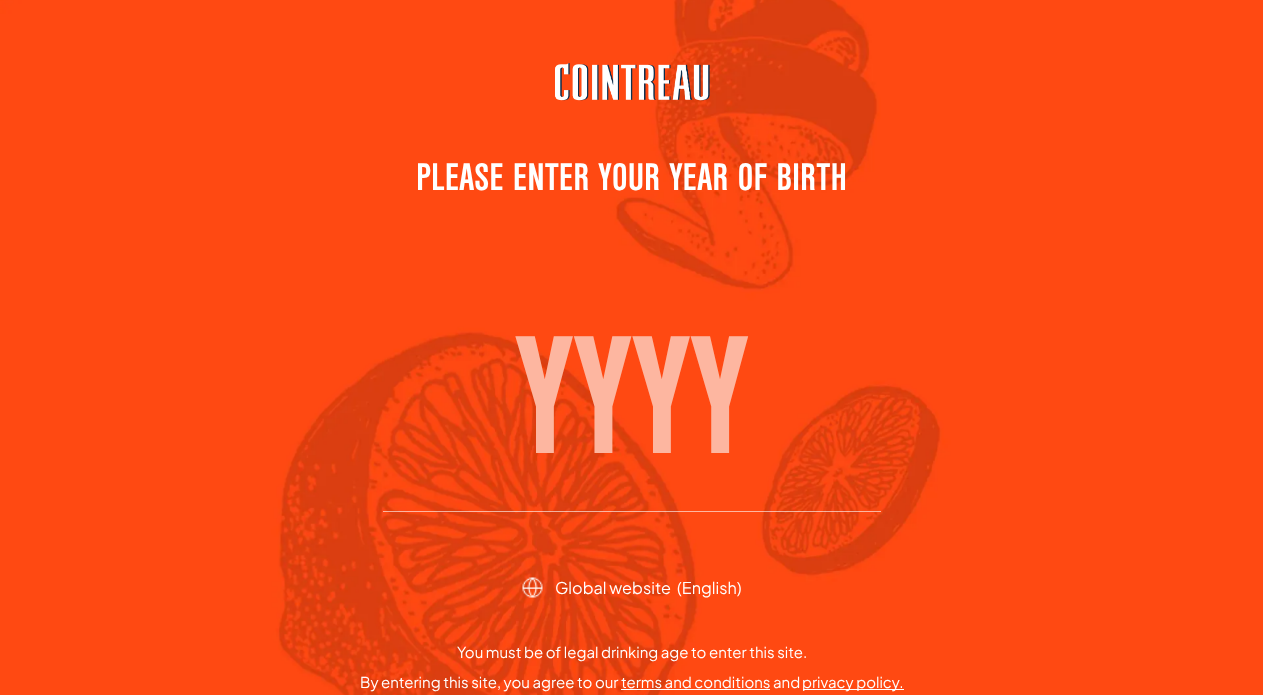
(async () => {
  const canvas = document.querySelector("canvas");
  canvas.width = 1263;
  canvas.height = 695;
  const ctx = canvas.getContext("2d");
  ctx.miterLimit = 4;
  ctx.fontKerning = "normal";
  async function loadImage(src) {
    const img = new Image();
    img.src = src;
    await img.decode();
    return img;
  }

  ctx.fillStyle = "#ffffff";
  ctx.fillRect(0, 0, 1263, 695);
  ctx.drawImage(await loadImage("img/1.png"), 0, 0, 1263, 695);
  ctx.drawImage(await loadImage("img/2.png"), 555, 63, 155, 38);
  ctx.fillStyle = "rgba(255, 255, 255, 0.6)";
  ctx.fillRect(383, 511, 498, 1);
  ctx.drawImage(await loadImage("img/3.png"), 522, 577, 21, 21);
  ctx.fillStyle = "#ffffff";
  ctx.fillRect(803, 689, 101, 1);
  ctx.fillRect(621, 689, 149, 1);
  ctx.font = "bold 40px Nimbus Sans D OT";
  ctx.fillText("PLEASE ENTER YOUR YEAR OF BIRTH", 416, 190);
  ctx.font = "bold 175px Nimbus Sans D OT";
  ctx.fillStyle = "#fdb6a0";
  ctx.fillText("YYYY", 515, 453);
  ctx.font = "16.25px Plus Jakarta Sans";
  ctx.fillStyle = "#ffffff";
  ctx.fillText("Global website", 555, 594);
  ctx.fillText("(English)", 677, 594);
  ctx.font = "15px Plus Jakarta Sans";
  for (const [text, x, y] of [
    ["You must be of legal drinking age to enter this site.", 457, 658],
    ["By entering this site, you agree to our terms and conditions and", 360, 688],
    ["privacy policy.", 802, 688],
  ]) {
    ctx.fillText(text, x, y);
  }
})();
